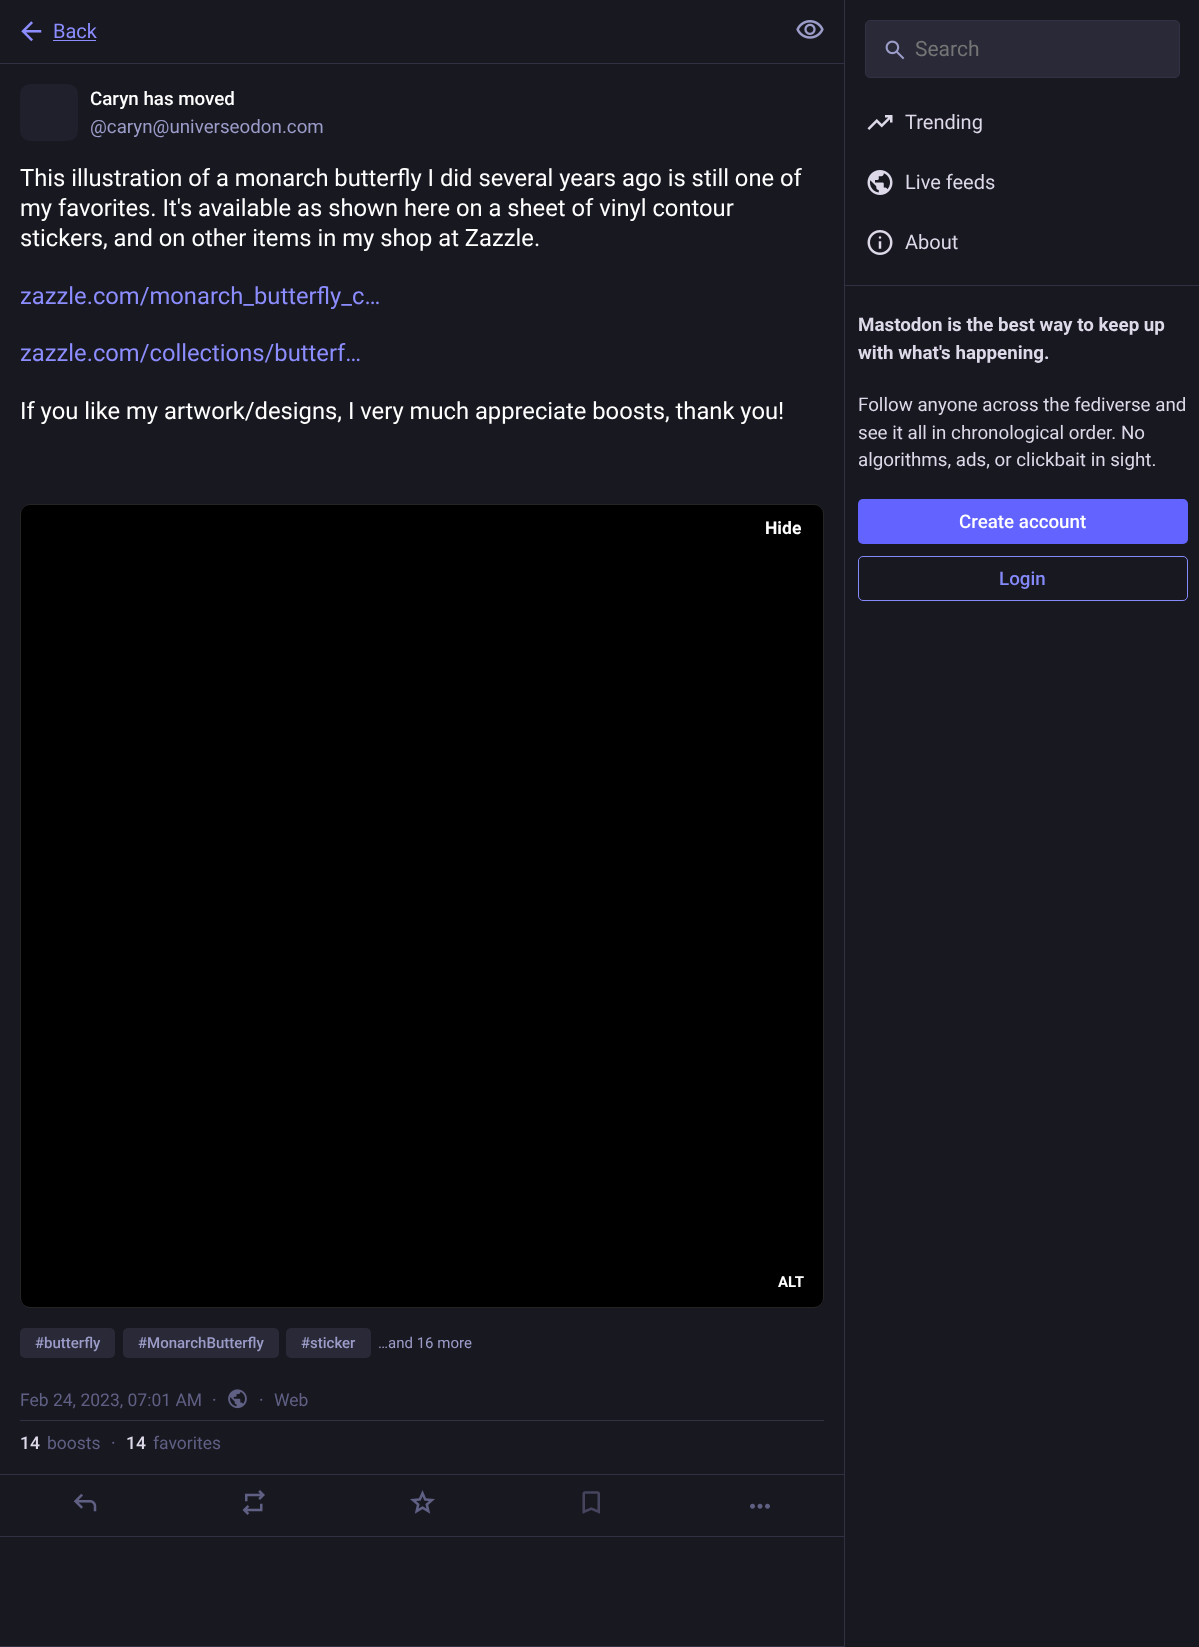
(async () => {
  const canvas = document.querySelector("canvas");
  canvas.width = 1199;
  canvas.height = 1647;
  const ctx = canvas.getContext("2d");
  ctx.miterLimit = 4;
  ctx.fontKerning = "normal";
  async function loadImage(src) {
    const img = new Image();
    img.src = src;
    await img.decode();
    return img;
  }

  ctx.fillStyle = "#181821";
  ctx.fillRect(0, 0, 1199, 1647);
  ctx.fillStyle = "#313144";
  ctx.fillRect(0, 63, 844, 1);
  ctx.drawImage(await loadImage("img/1.png"), 21, 21, 21, 21);
  ctx.fillStyle = "#8c8dff";
  ctx.fillRect(53, 40, 43, 1);
  ctx.drawImage(await loadImage("img/2.png"), 796, 20, 28, 19);
  ctx.fillStyle = "#313144";
  ctx.fillRect(0, 1646, 844, 1);
  ctx.fillStyle = "#20202c";
  ctx.beginPath();
  ctx.roundRect(20, 84, 58, 57, 10);
  ctx.fill();
  ctx.fillStyle = "#000000";
  ctx.beginPath();
  ctx.roundRect(20, 504, 804, 804, 10);
  ctx.fill();
  ctx.beginPath();
  ctx.roundRect(20.5, 504.5, 803, 803, 9.5);
  ctx.strokeStyle = "rgba(252, 248, 255, 0.15)";
  ctx.stroke();
  ctx.fillStyle = "#292938";
  ctx.beginPath();
  ctx.roundRect(20, 1328, 95, 30, 5);
  ctx.fill();
  ctx.beginPath();
  ctx.roundRect(123, 1328, 156, 30, 5);
  ctx.fill();
  ctx.beginPath();
  ctx.roundRect(286, 1328, 85, 30, 5);
  ctx.fill();
  ctx.fillStyle = "#313144";
  ctx.fillRect(20, 1420, 804, 1);
  ctx.drawImage(await loadImage("img/3.png"), 228, 1389, 19, 20);
  ctx.fillRect(0, 1474, 844, 1);
  ctx.fillRect(0, 1536, 844, 1);
  ctx.drawImage(await loadImage("img/4.png"), 73, 1493, 24, 19);
  ctx.drawImage(await loadImage("img/5.png"), 242, 1490, 23, 25);
  ctx.drawImage(await loadImage("img/6.png"), 410, 1490, 25, 24);
  ctx.drawImage(await loadImage("img/7.png"), 582, 1491, 18, 23);
  ctx.drawImage(await loadImage("img/8.png"), 750, 1503, 20, 6);
  ctx.fillRect(844, 0, 1, 1647);
  ctx.fillStyle = "#292938";
  ctx.beginPath();
  ctx.roundRect(865.5, 20.5, 314, 57, 4.5);
  ctx.fill();
  ctx.strokeStyle = "#313144";
  ctx.stroke();
  ctx.drawImage(await loadImage("img/9.png"), 885, 40, 20, 20);
  ctx.drawImage(await loadImage("img/10.png"), 867, 115, 26, 15);
  ctx.drawImage(await loadImage("img/11.png"), 867, 170, 26, 25);
  ctx.drawImage(await loadImage("img/12.png"), 867, 230, 26, 25);
  ctx.fillStyle = "#313144";
  ctx.fillRect(845, 285, 354, 1);
  ctx.fillStyle = "#6364ff";
  ctx.beginPath();
  ctx.roundRect(858, 499, 330, 45, 5);
  ctx.fill();
  ctx.beginPath();
  ctx.roundRect(858.5, 556.5, 329, 44, 4.5);
  ctx.strokeStyle = "#858afa";
  ctx.stroke();
  ctx.font = "20px Roboto";
  ctx.fillStyle = "#8c8dff";
  ctx.fillText("Back", 53, 38);
  ctx.font = "500 18.75px Roboto";
  ctx.fillStyle = "#ffffff";
  ctx.fillText("Caryn has moved", 90, 105);
  ctx.font = "18.75px Roboto";
  ctx.fillStyle = "#9c9cc9";
  ctx.fillText("@caryn@universeodon.com", 90, 133);
  ctx.font = "23.75px Roboto";
  ctx.fillStyle = "#ffffff";
  for (const [text, x, y] of [
    ["This illustration of a monarch butterfly I did several years ago is still one of", 20, 186],
    ["my favorites. It's available as shown here on a sheet of vinyl contour", 20, 216],
    ["stickers, and on other items in my shop at Zazzle.", 20, 246],
  ]) {
    ctx.fillText(text, x, y);
  }
  ctx.fillStyle = "#8c8dff";
  ctx.fillText("zazzle.com/monarch_butterfly_c…", 20, 304);
  ctx.fillText("zazzle.com/collections/butterf…", 20, 361);
  ctx.fillStyle = "#ffffff";
  ctx.fillText("If you like my artwork/designs, I very much appreciate boosts, thank you!", 20, 419);
  ctx.font = "bold 17.5px Roboto";
  ctx.fillText("Hide", 765, 534);
  ctx.font = "bold 15px Roboto";
  ctx.fillText("ALT", 778, 1287);
  ctx.font = "500 15px Roboto";
  ctx.fillStyle = "#9c9cc9";
  for (const [text, x, y] of [
    ["#butterfly", 35, 1348],
    ["#MonarchButterfly", 138, 1348],
    ["#sticker", 301, 1348],
  ]) {
    ctx.fillText(text, x, y);
  }
  ctx.font = "15px Roboto";
  ctx.fillText("…and 16 more", 378, 1348);
  ctx.font = "17.5px Roboto";
  ctx.fillStyle = "#606085";
  for (const [text, x, y] of [
    ["Feb 24, 2023, 07:01 AM", 20, 1406],
    ["·", 212, 1406],
    ["·", 259, 1406],
    ["Web", 274, 1406],
  ]) {
    ctx.fillText(text, x, y);
  }
  ctx.font = "500 17.5px Roboto";
  ctx.fillStyle = "#ddd9e8";
  ctx.fillText("14", 20, 1449);
  ctx.font = "17.5px Roboto";
  ctx.fillStyle = "#606085";
  ctx.fillText("boosts", 47, 1449);
  ctx.fillText("·", 111, 1449);
  ctx.font = "500 17.5px Roboto";
  ctx.fillStyle = "#ddd9e8";
  ctx.fillText("14", 126, 1449);
  ctx.font = "17.5px Roboto";
  ctx.fillStyle = "#606085";
  ctx.fillText("favorites", 153, 1449);
  ctx.font = "21px Roboto";
  ctx.fillStyle = "#757575";
  ctx.fillText("Search", 915, 56);
  ctx.font = "20px Roboto";
  ctx.fillStyle = "#ddd9e8";
  for (const [text, x, y] of [
    ["Trending", 905, 129],
    ["Live feeds", 905, 189],
    ["About", 905, 249],
  ]) {
    ctx.fillText(text, x, y);
  }
  ctx.font = "bold 18.75px Roboto";
  ctx.fillText("Mastodon is the best way to keep up", 858, 331);
  ctx.fillText("with what's happening.", 858, 359);
  ctx.font = "18.75px Roboto";
  for (const [text, x, y] of [
    ["Follow anyone across the fediverse and", 858, 411],
    ["see it all in chronological order. No", 858, 439],
    ["algorithms, ads, or clickbait in sight.", 858, 466],
  ]) {
    ctx.fillText(text, x, y);
  }
  ctx.font = "500 18.75px Roboto";
  ctx.fillStyle = "#ffffff";
  ctx.fillText("Create account", 959, 528);
  ctx.fillStyle = "#858afa";
  ctx.fillText("Login", 999, 585);
})();
